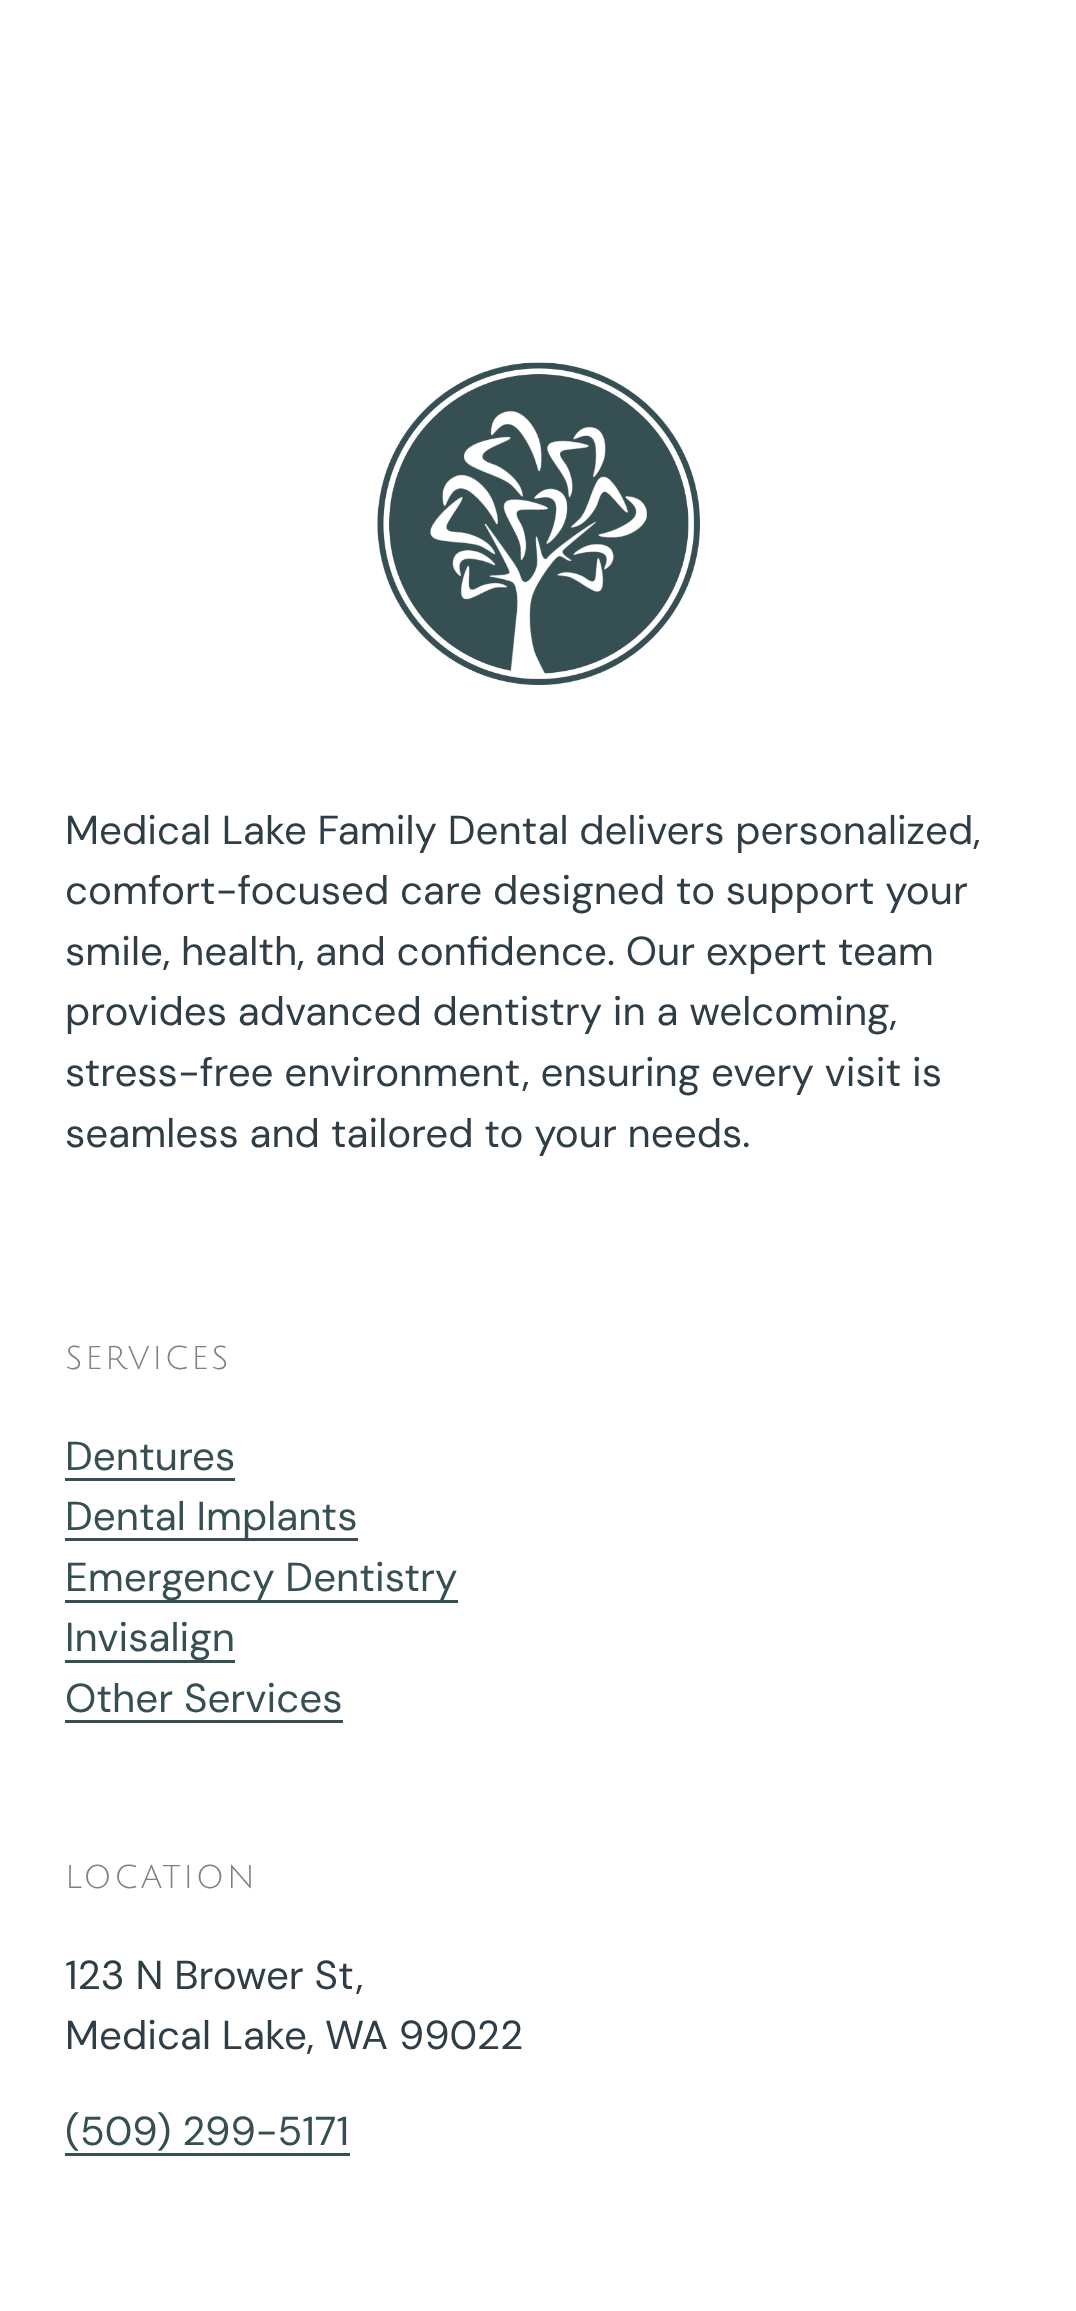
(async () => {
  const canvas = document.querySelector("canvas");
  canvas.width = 1076;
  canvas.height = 2311;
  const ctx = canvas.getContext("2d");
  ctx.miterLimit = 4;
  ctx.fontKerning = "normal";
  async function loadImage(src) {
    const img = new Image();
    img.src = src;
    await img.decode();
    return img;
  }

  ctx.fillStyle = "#ffffff";
  ctx.fillRect(0, 0, 1076, 2311);
  ctx.drawImage(await loadImage("img/1.png"), 377, 362, 323, 323);
  for (const [x, y, w, h, color] of [
    [65, 1478, 170, 3, "#364f52"],
    [65, 1538, 293, 3, "#364f52"],
    [65, 1600, 393, 3, "#364f52"],
    [65, 1660, 170, 3, "#364f52"],
    [65, 1720, 278, 3, "#364f52"],
    [65, 2153, 285, 3, "#364f52"],
  ]) {
    ctx.fillStyle = color;
    ctx.fillRect(x, y, w, h);
  }
  ctx.font = "40.4px DM Sans";
  ctx.fillStyle = "#2f3e46";
  for (const [text, x, y] of [
    ["Medical Lake Family Dental delivers personalized,", 65, 844],
    ["comfort-focused care designed to support your", 65, 904],
    ["smile, health, and confidence. Our expert team", 65, 965],
    ["provides advanced dentistry in a welcoming,", 65, 1025],
    ["stress-free environment, ensuring every visit is", 65, 1086],
    ["seamless and tailored to your needs.", 65, 1147],
  ]) {
    ctx.fillText(text, x, y);
  }
  ctx.letterSpacing = "2.5px";
  ctx.font = "32.25px Julius Sans One";
  ctx.fillStyle = "#808080";
  ctx.fillText("SERVICES", 65, 1369);
  ctx.letterSpacing = "0px";
  ctx.font = "40.4px DM Sans";
  ctx.fillStyle = "#364f52";
  for (const [text, x, y] of [
    ["Dentures", 65, 1470],
    ["Dental Implants", 65, 1530],
    ["Emergency Dentistry", 65, 1591],
    ["Invisalign", 65, 1651],
    ["Other Services", 65, 1712],
  ]) {
    ctx.fillText(text, x, y);
  }
  ctx.letterSpacing = "2.5px";
  ctx.font = "32.25px Julius Sans One";
  ctx.fillStyle = "#808080";
  ctx.fillText("LOCATION", 65, 1888);
  ctx.letterSpacing = "0px";
  ctx.font = "40.4px DM Sans";
  ctx.fillStyle = "#2f3e46";
  ctx.fillText("123 N Brower St,", 65, 1989);
  ctx.fillText("Medical Lake, WA 99022", 65, 2049);
  ctx.fillStyle = "#364f52";
  ctx.fillText("(509) 299-5171", 65, 2145);
})();
